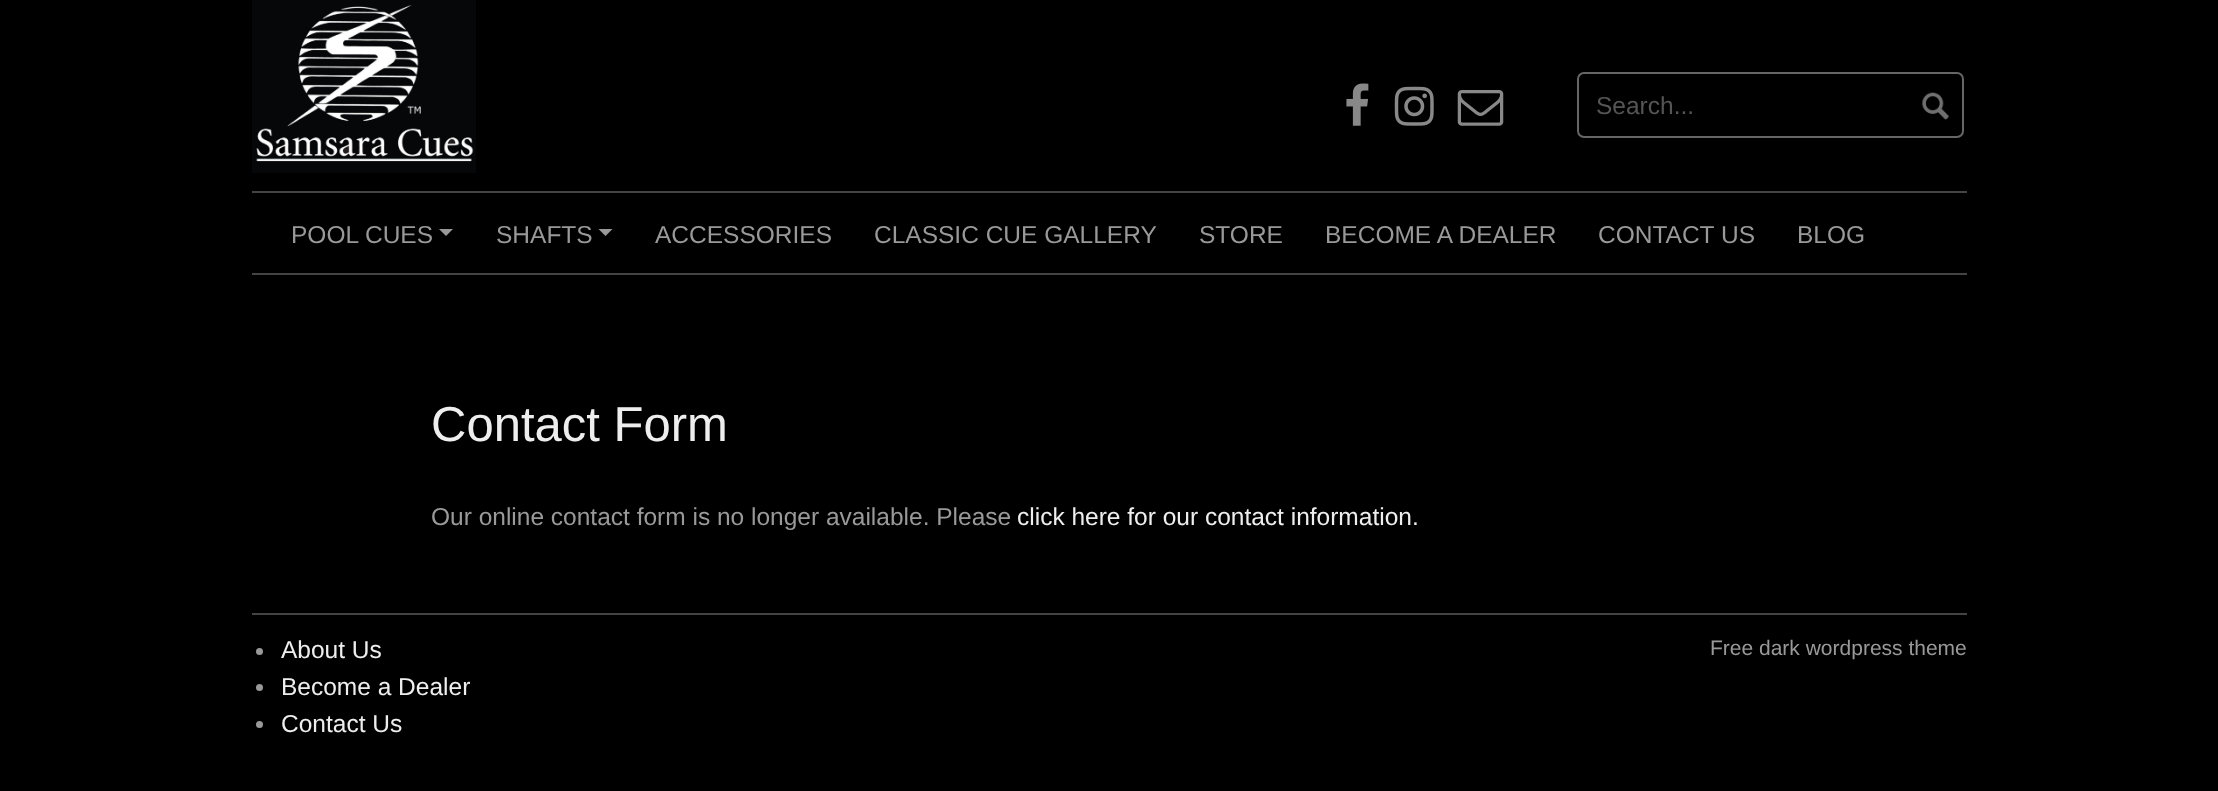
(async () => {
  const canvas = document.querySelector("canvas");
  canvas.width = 2218;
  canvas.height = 791;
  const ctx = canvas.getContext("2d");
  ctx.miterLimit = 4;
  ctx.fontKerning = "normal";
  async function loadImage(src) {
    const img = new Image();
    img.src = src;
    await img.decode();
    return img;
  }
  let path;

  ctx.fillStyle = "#000000";
  ctx.fillRect(0, 0, 2218, 791);
  ctx.drawImage(await loadImage("img/1.png"), 252, 0, 224, 173);
  ctx.drawImage(await loadImage("img/2.png"), 1346, 83, 23, 43);
  ctx.drawImage(await loadImage("img/3.png"), 1394, 86, 40, 40);
  ctx.drawImage(await loadImage("img/4.png"), 1457, 90, 47, 36);
  ctx.beginPath();
  ctx.roundRect(1578, 73, 385, 64, 6);
  ctx.strokeStyle = "#666666";
  ctx.lineWidth = 2;
  ctx.stroke();
  ctx.drawImage(await loadImage("img/5.png"), 1922, 92, 27, 28);
  ctx.fillStyle = "#444444";
  ctx.fillRect(252, 191, 1715, 2);
  ctx.fillRect(252, 273, 1715, 2);
  ctx.fillStyle = "#999999";
  path = new Path2D("M439 229H453L446 236Z");
  ctx.fill(path);
  path = new Path2D("M598.5 229H612.5L605.5 236Z");
  ctx.fill(path);
  ctx.fillStyle = "#444444";
  ctx.fillRect(252, 613, 1715, 2);
  ctx.fillStyle = "#999999";
  ctx.beginPath();
  ctx.arc(259.5, 651.5, 3.5, 0, Math.PI * 2);
  ctx.fill();
  ctx.beginPath();
  ctx.arc(259.5, 687.5, 3.5, 0, Math.PI * 2);
  ctx.fill();
  ctx.beginPath();
  ctx.arc(259.5, 724.5, 3.5, 0, Math.PI * 2);
  ctx.fill();
  ctx.font = "24.5px Liberation Sans";
  ctx.fillStyle = "#555555";
  ctx.fillText("Search...", 1596, 114);
  ctx.fillStyle = "#999999";
  for (const [text, x, y] of [
    ["POOL CUES", 291, 243],
    ["SHAFTS", 496, 243],
    ["ACCESSORIES", 655, 243],
    ["CLASSIC CUE GALLERY", 874, 243],
    ["STORE", 1199, 243],
    ["BECOME A DEALER", 1325, 243],
    ["CONTACT US", 1598, 243],
    ["BLOG", 1797, 243],
  ]) {
    ctx.fillText(text, x, y);
  }
  ctx.font = "49px Liberation Sans";
  ctx.fillStyle = "#eeeeee";
  ctx.fillText("Contact Form", 431, 441);
  ctx.font = "24.5px Liberation Sans";
  ctx.fillStyle = "#999999";
  ctx.fillText("Our online contact form is no longer available. Please", 431, 525);
  ctx.fillStyle = "#eeeeee";
  for (const [text, x, y] of [
    ["click here for our contact information.", 1017, 525],
    ["About Us", 281, 658],
    ["Become a Dealer", 281, 695],
    ["Contact Us", 281, 732],
  ]) {
    ctx.fillText(text, x, y);
  }
  ctx.font = "21px Liberation Sans";
  ctx.fillStyle = "#999999";
  ctx.fillText("Free dark wordpress theme", 1710, 655);
})();
